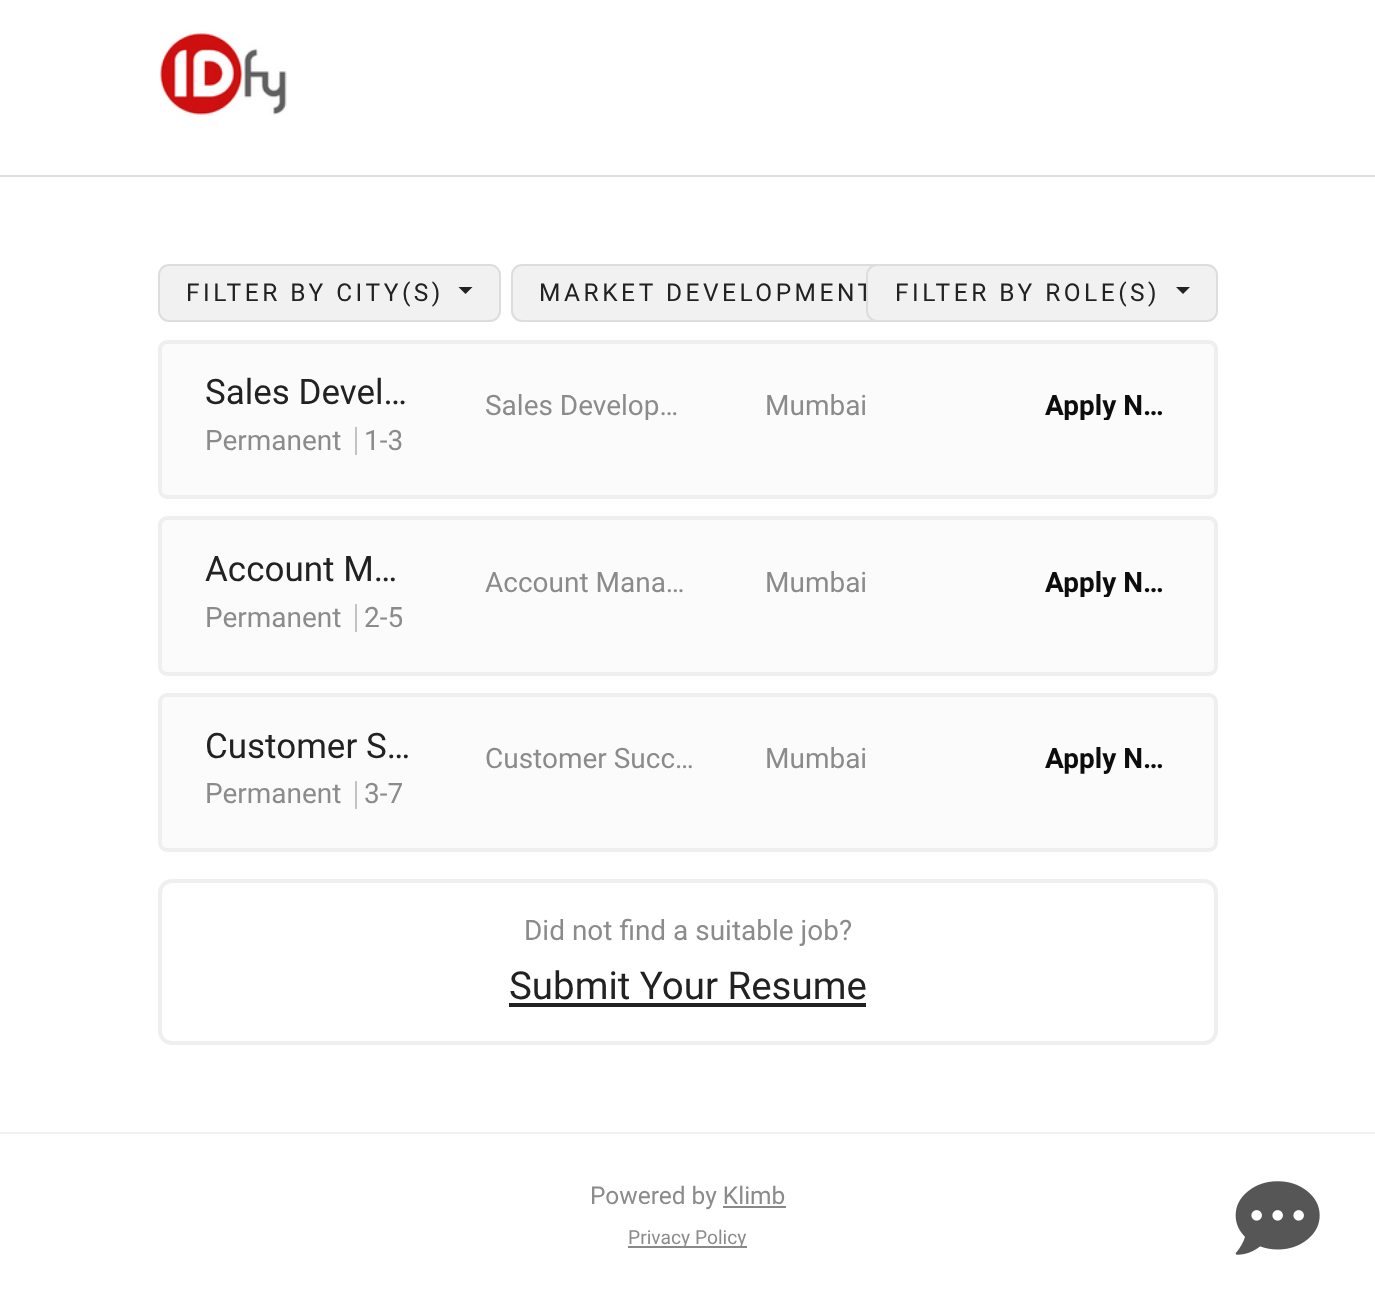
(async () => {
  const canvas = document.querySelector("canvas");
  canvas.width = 1375;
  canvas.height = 1289;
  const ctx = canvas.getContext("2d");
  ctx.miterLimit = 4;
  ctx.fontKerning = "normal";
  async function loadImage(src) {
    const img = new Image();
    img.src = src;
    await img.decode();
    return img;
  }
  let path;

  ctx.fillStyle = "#ffffff";
  ctx.fillRect(0, 0, 1375, 1289);
  ctx.fillStyle = "#dfdfdf";
  ctx.fillRect(0, 175, 1375, 2);
  ctx.drawImage(await loadImage("img/1.png"), 160, 31, 127, 86);
  ctx.fillStyle = "#f1f1f1";
  ctx.beginPath();
  ctx.roundRect(159, 265, 341, 56, 10);
  ctx.fill();
  ctx.strokeStyle = "#dddddd";
  ctx.lineWidth = 2;
  ctx.stroke();
  ctx.fillStyle = "#222222";
  path = new Path2D("M458.5 287H472.5L465.5 294Z");
  ctx.fill(path);
  ctx.fillStyle = "#f1f1f1";
  ctx.beginPath();
  ctx.roundRect(512, 265, 420, 56, 10);
  ctx.fill();
  ctx.stroke();
  ctx.fillStyle = "#fbfbfb";
  ctx.beginPath();
  ctx.roundRect(160, 342, 1056, 155, 7);
  ctx.fill();
  ctx.strokeStyle = "#efefef";
  ctx.lineWidth = 4;
  ctx.stroke();
  ctx.fillStyle = "#c3c3c3";
  ctx.fillRect(355, 427, 2, 28);
  ctx.fillStyle = "#fbfbfb";
  ctx.beginPath();
  ctx.roundRect(160, 518, 1056, 156, 7);
  ctx.fill();
  ctx.stroke();
  ctx.fillStyle = "#c3c3c3";
  ctx.fillRect(355, 604, 2, 28);
  ctx.fillStyle = "#fbfbfb";
  ctx.beginPath();
  ctx.roundRect(160, 695, 1056, 155, 7);
  ctx.fill();
  ctx.stroke();
  ctx.fillStyle = "#c3c3c3";
  ctx.fillRect(355, 781, 2, 28);
  ctx.beginPath();
  ctx.roundRect(160, 881, 1056, 162, 12);
  ctx.stroke();
  for (const [x, y, w, h, color] of [
    [509, 1003, 357, 4, "#222222"],
    [0, 1132, 1375, 2, "#f1f1f1"],
    [628, 1246, 119, 2, "#888888"],
  ]) {
    ctx.fillStyle = color;
    ctx.fillRect(x, y, w, h);
  }
  ctx.drawImage(await loadImage("img/2.png"), 1235, 1181, 85, 74);
  ctx.letterSpacing = "3.5px";
  ctx.font = "24.5px Roboto";
  ctx.fillStyle = "#222222";
  ctx.fillText("FILTER BY CITY(S)", 186, 301);
  ctx.fillText("MARKET DEVELOPMENT", 539, 301);
  ctx.fillStyle = "#f1f1f1";
  ctx.beginPath();
  ctx.roundRect(867, 265, 350, 56, 10);
  ctx.fill();
  ctx.strokeStyle = "#dddddd";
  ctx.lineWidth = 2;
  ctx.stroke();
  ctx.fillStyle = "#222222";
  ctx.fillText("FILTER BY ROLE(S)", 895, 301);
  path = new Path2D("M1176 287H1190L1183 294Z");
  ctx.fill(path);
  ctx.letterSpacing = "0px";
  ctx.font = "35px Roboto";
  ctx.fillText("Sales Devel…", 205, 404);
  ctx.font = "28px Roboto";
  ctx.fillStyle = "#8b8b8b";
  ctx.fillText("Permanent", 205, 450);
  ctx.fillText("1-3", 364, 450);
  ctx.save();
  ctx.beginPath();
  ctx.rect(485, 392, 210, 28);
  ctx.clip();
  ctx.fillText("Sales Develop…", 485, 415);
  ctx.restore();
  ctx.fillText("Mumbai", 765, 415);
  ctx.save();
  ctx.beginPath();
  ctx.rect(1045, 383, 126, 37);
  ctx.clip();
  ctx.font = "bold 28px Roboto";
  ctx.fillStyle = "#0d0d0d";
  ctx.fillText("Apply N…", 1045, 415);
  ctx.restore();
  ctx.font = "35px Roboto";
  ctx.fillStyle = "#222222";
  ctx.fillText("Account M…", 205, 581);
  ctx.font = "28px Roboto";
  ctx.fillStyle = "#8b8b8b";
  for (const [text, x, y] of [
    ["Permanent", 205, 627],
    ["2-5", 364, 627],
    ["Account Mana…", 485, 592],
    ["Mumbai", 765, 592],
  ]) {
    ctx.fillText(text, x, y);
  }
  ctx.save();
  ctx.beginPath();
  ctx.rect(1045, 560, 126, 37);
  ctx.clip();
  ctx.font = "bold 28px Roboto";
  ctx.fillStyle = "#0d0d0d";
  ctx.fillText("Apply N…", 1045, 592);
  ctx.restore();
  ctx.font = "35px Roboto";
  ctx.fillStyle = "#222222";
  ctx.fillText("Customer S…", 205, 758);
  ctx.font = "28px Roboto";
  ctx.fillStyle = "#8b8b8b";
  for (const [text, x, y] of [
    ["Permanent", 205, 803],
    ["3-7", 364, 803],
    ["Customer Succ…", 485, 768],
    ["Mumbai", 765, 768],
  ]) {
    ctx.fillText(text, x, y);
  }
  ctx.font = "bold 28px Roboto";
  ctx.fillStyle = "#0d0d0d";
  ctx.fillText("Apply N…", 1045, 768);
  ctx.font = "28px Roboto";
  ctx.fillStyle = "#8b8b8b";
  ctx.fillText("Did not find a suitable job?", 524, 940);
  ctx.font = "38.5px Roboto";
  ctx.fillStyle = "#222222";
  ctx.fillText("Submit Your Resume", 509, 999);
  ctx.font = "24.5px Roboto";
  ctx.fillStyle = "#8b8b8b";
  ctx.fillText("Powered by Klimb", 590, 1204);
  ctx.fillStyle = "#888888";
  ctx.fillRect(723, 1206, 63, 2);
  ctx.font = "19.25px Roboto";
  ctx.fillStyle = "#8b8b8b";
  ctx.fillText("Privacy Policy", 628, 1244);
})();
